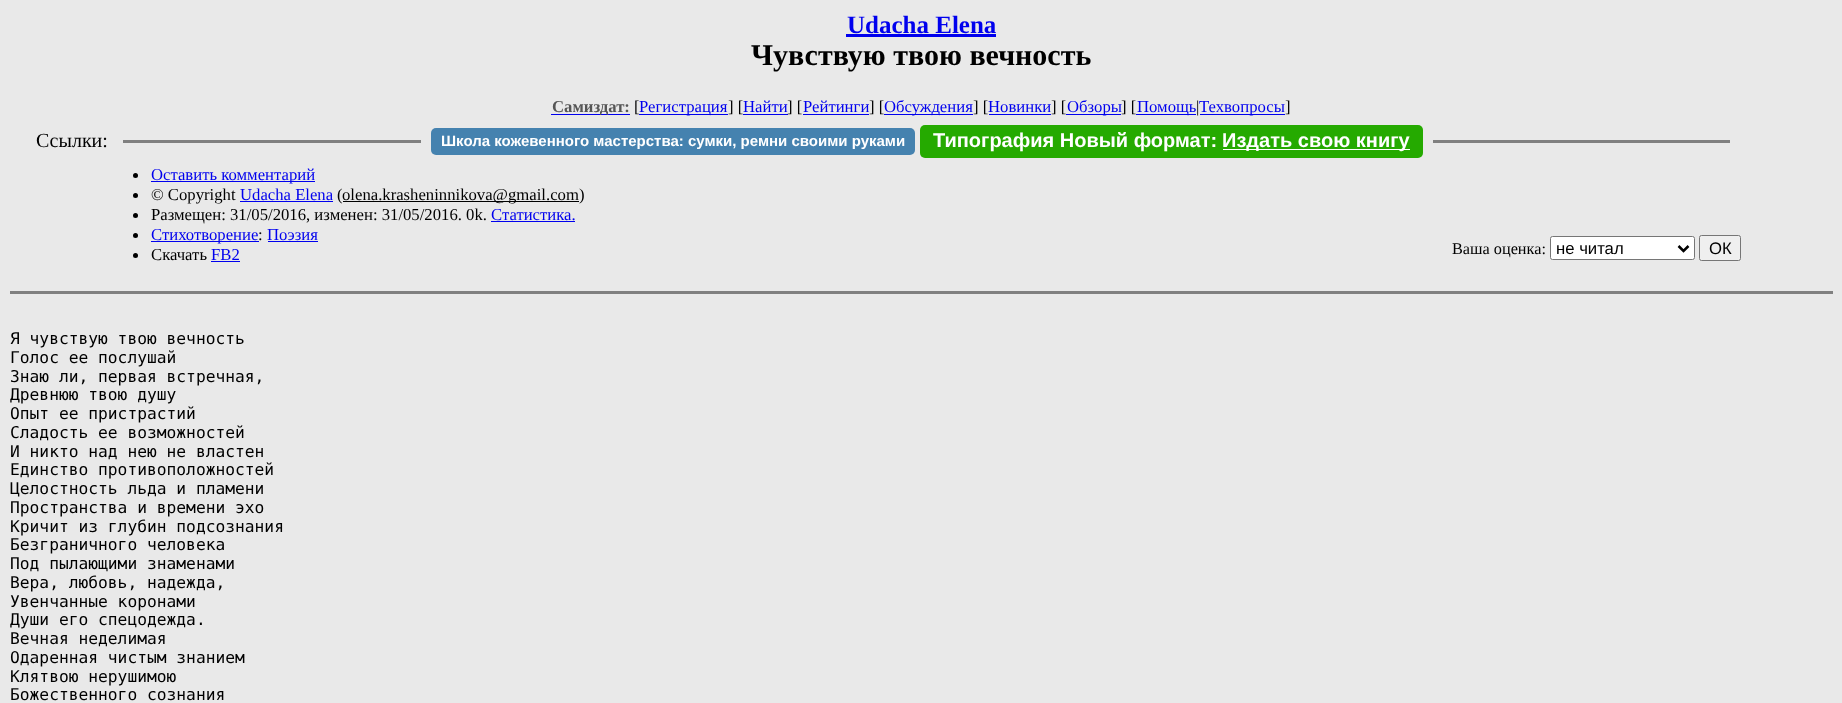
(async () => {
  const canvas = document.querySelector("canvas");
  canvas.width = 1842;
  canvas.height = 703;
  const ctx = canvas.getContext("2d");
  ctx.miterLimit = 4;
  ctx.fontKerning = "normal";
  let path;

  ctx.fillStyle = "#e9e9e9";
  ctx.fillRect(0, 0, 1842, 703);
  for (const [x, y, w, h, color] of [
    [846, 34, 150, 3, "#0000ee"],
    [551, 114, 79, 1, "#0000ee"],
    [639, 114, 89, 1, "#0000ee"],
    [743, 114, 45, 1, "#0000ee"],
    [803, 114, 66, 1, "#0000ee"],
    [884, 114, 89, 1, "#0000ee"],
    [989, 114, 62, 1, "#0000ee"],
    [1066, 114, 55, 1, "#0000ee"],
    [1200, 114, 85, 1, "#0000ee"],
    [123, 140, 298, 3, "#808080"],
  ]) {
    ctx.fillStyle = color;
    ctx.fillRect(x, y, w, h);
  }
  ctx.fillStyle = "#4582af";
  ctx.beginPath();
  ctx.roundRect(431, 128, 484, 27, 5);
  ctx.fill();
  ctx.fillStyle = "#25aa00";
  ctx.beginPath();
  ctx.roundRect(920, 125, 503, 33, 5);
  ctx.fill();
  ctx.fillStyle = "#ffffff";
  ctx.fillRect(1223, 149, 187, 1);
  ctx.fillStyle = "#808080";
  ctx.fillRect(1433, 140, 297, 3);
  ctx.fillStyle = "#000000";
  ctx.beginPath();
  ctx.arc(135.5, 175.5, 2.5, 0, Math.PI * 2);
  ctx.fill();
  ctx.fillStyle = "#0000ee";
  ctx.fillRect(151, 181, 164, 1);
  ctx.fillStyle = "#000000";
  ctx.beginPath();
  ctx.arc(135.5, 195.5, 2.5, 0, Math.PI * 2);
  ctx.fill();
  ctx.fillStyle = "#0000ee";
  ctx.fillRect(240, 201, 93, 1);
  ctx.fillStyle = "#000000";
  ctx.fillRect(343, 201, 236, 1);
  ctx.beginPath();
  ctx.arc(135.5, 215.5, 2.5, 0, Math.PI * 2);
  ctx.fill();
  ctx.fillStyle = "#0000ee";
  ctx.fillRect(491, 221, 84, 1);
  ctx.fillStyle = "#000000";
  ctx.beginPath();
  ctx.arc(135.5, 235.5, 2.5, 0, Math.PI * 2);
  ctx.fill();
  ctx.fillStyle = "#0000ee";
  ctx.fillRect(151, 241, 108, 1);
  ctx.fillRect(268, 241, 50, 1);
  ctx.fillStyle = "#000000";
  ctx.beginPath();
  ctx.arc(135.5, 255.5, 2.5, 0, Math.PI * 2);
  ctx.fill();
  ctx.fillStyle = "#0000ee";
  ctx.fillRect(211, 261, 29, 1);
  ctx.fillStyle = "#ffffff";
  ctx.beginPath();
  ctx.roundRect(1550.5, 236.5, 144, 23, 2);
  ctx.fill();
  ctx.strokeStyle = "#767676";
  ctx.stroke();
  path = new Path2D("M1678.5 246L1683.5 251L1688.5 246");
  ctx.strokeStyle = "#000000";
  ctx.lineWidth = 2.5;
  ctx.stroke(path);
  ctx.fillStyle = "#efefef";
  ctx.beginPath();
  ctx.roundRect(1699.5, 235.5, 41, 25, 2);
  ctx.fill();
  ctx.strokeStyle = "#767676";
  ctx.lineWidth = 1;
  ctx.stroke();
  ctx.fillStyle = "#808080";
  ctx.fillRect(10, 291, 1823, 3);
  ctx.font = "bold 25px Liberation Serif";
  ctx.fillStyle = "#0000ee";
  ctx.fillText("Udacha Elena", 847, 33);
  ctx.font = "bold 30px Liberation Serif";
  ctx.fillStyle = "#000000";
  ctx.fillText("Чувствую твою вечность", 751, 65);
  ctx.font = "bold 16.7px Liberation Serif";
  ctx.fillStyle = "#555555";
  ctx.fillText("Самиздат:", 552, 112);
  ctx.font = "16.7px Liberation Serif";
  ctx.fillStyle = "#000000";
  ctx.fillText("[", 634, 112);
  ctx.fillStyle = "#0000ee";
  ctx.fillText("Регистрация", 639, 112);
  ctx.fillStyle = "#000000";
  ctx.fillText("] [", 728, 112);
  ctx.fillStyle = "#0000ee";
  ctx.fillText("Найти", 743, 112);
  ctx.fillStyle = "#000000";
  ctx.fillText("] [", 787, 112);
  ctx.fillStyle = "#0000ee";
  ctx.fillText("Рейтинги", 803, 112);
  ctx.fillStyle = "#000000";
  ctx.fillText("] [", 869, 112);
  ctx.fillStyle = "#0000ee";
  ctx.fillText("Обсуждения", 884, 112);
  ctx.fillStyle = "#000000";
  ctx.fillText("] [", 973, 112);
  ctx.fillStyle = "#0000ee";
  ctx.fillText("Новинки", 988, 112);
  ctx.fillStyle = "#000000";
  ctx.fillText("] [", 1051, 112);
  ctx.fillStyle = "#0000ee";
  ctx.fillText("Обзоры", 1067, 112);
  ctx.fillStyle = "#000000";
  ctx.fillText("] [", 1121, 112);
  ctx.fillStyle = "#0000ee";
  ctx.fillRect(1136, 114, 60, 1);
  ctx.fillText("Помощь", 1137, 112);
  ctx.fillStyle = "#000000";
  ctx.fillText("|", 1196, 112);
  ctx.fillStyle = "#0000ee";
  ctx.fillText("Техвопросы", 1199, 112);
  ctx.fillStyle = "#000000";
  ctx.fillText("]", 1285, 112);
  ctx.font = "20px Liberation Serif";
  ctx.fillText("Ссылки:", 36, 147);
  ctx.font = "bold 15px Liberation Sans";
  ctx.fillStyle = "#ffffff";
  ctx.fillText("Школа кожевенного мастерства: сумки, ремни своими руками", 441, 146);
  ctx.font = "bold 20px Liberation Sans";
  ctx.fillText("Типография Новый формат:", 933, 147);
  ctx.fillText("Издать свою книгу", 1222, 147);
  ctx.font = "16.7px Liberation Serif";
  ctx.fillStyle = "#0000ee";
  ctx.fillText("Оставить комментарий", 151, 180);
  ctx.fillStyle = "#000000";
  ctx.fillText("© Copyright", 151, 200);
  ctx.fillStyle = "#0000ee";
  ctx.fillText("Udacha Elena", 240, 200);
  ctx.fillStyle = "#000000";
  for (const [text, x, y] of [
    ["(", 337, 200],
    ["olena.krasheninnikova@gmail.com)", 342, 200],
    ["Размещен: 31/05/2016, изменен: 31/05/2016. 0k.", 151, 220],
  ]) {
    ctx.fillText(text, x, y);
  }
  ctx.fillStyle = "#0000ee";
  ctx.fillText("Статистика.", 491, 220);
  ctx.fillText("Стихотворение", 151, 240);
  ctx.fillStyle = "#000000";
  ctx.fillText(":", 258, 240);
  ctx.fillStyle = "#0000ee";
  ctx.fillText("Поэзия", 267, 240);
  ctx.fillStyle = "#000000";
  ctx.fillText("Скачать", 151, 260);
  ctx.fillStyle = "#0000ee";
  ctx.fillText("FB2", 211, 260);
  ctx.font = "16.25px Liberation Serif";
  ctx.fillStyle = "#000000";
  ctx.fillText("Ваша оценка:", 1452, 254);
  ctx.font = "16.7px Liberation Sans";
  ctx.fillText("не читал", 1556, 254);
  ctx.fillText("ОК", 1709, 254);
  ctx.font = "16.25px DejaVu Sans Mono";
  for (const [text, x, y] of [
    ["Я чувствую твою вечность", 10, 344],
    ["Голос ее послушай", 10, 363],
    ["Знаю ли, первая встречная,", 10, 382],
    ["Древнюю твою душу", 10, 400],
    ["Опыт ее пристрастий", 10, 419],
    ["Сладость ее возможностей", 10, 438],
    ["И никто над нею не властен", 10, 457],
    ["Единство противоположностей", 10, 475],
    ["Целостность льда и пламени", 10, 494],
    ["Пространства и времени эхо", 10, 513],
    ["Кричит из глубин подсознания", 10, 532],
    ["Безграничного человека", 10, 550],
    ["Под пылающими знаменами", 10, 569],
    ["Вера, любовь, надежда,", 10, 588],
    ["Увенчанные коронами", 10, 607],
    ["Души его спецодежда.", 10, 625],
    ["Вечная неделимая", 10, 644],
    ["Одаренная чистым знанием", 10, 663],
    ["Клятвою нерушимою", 10, 682],
    ["Божественного сознания", 10, 700],
  ]) {
    ctx.fillText(text, x, y);
  }
})();
